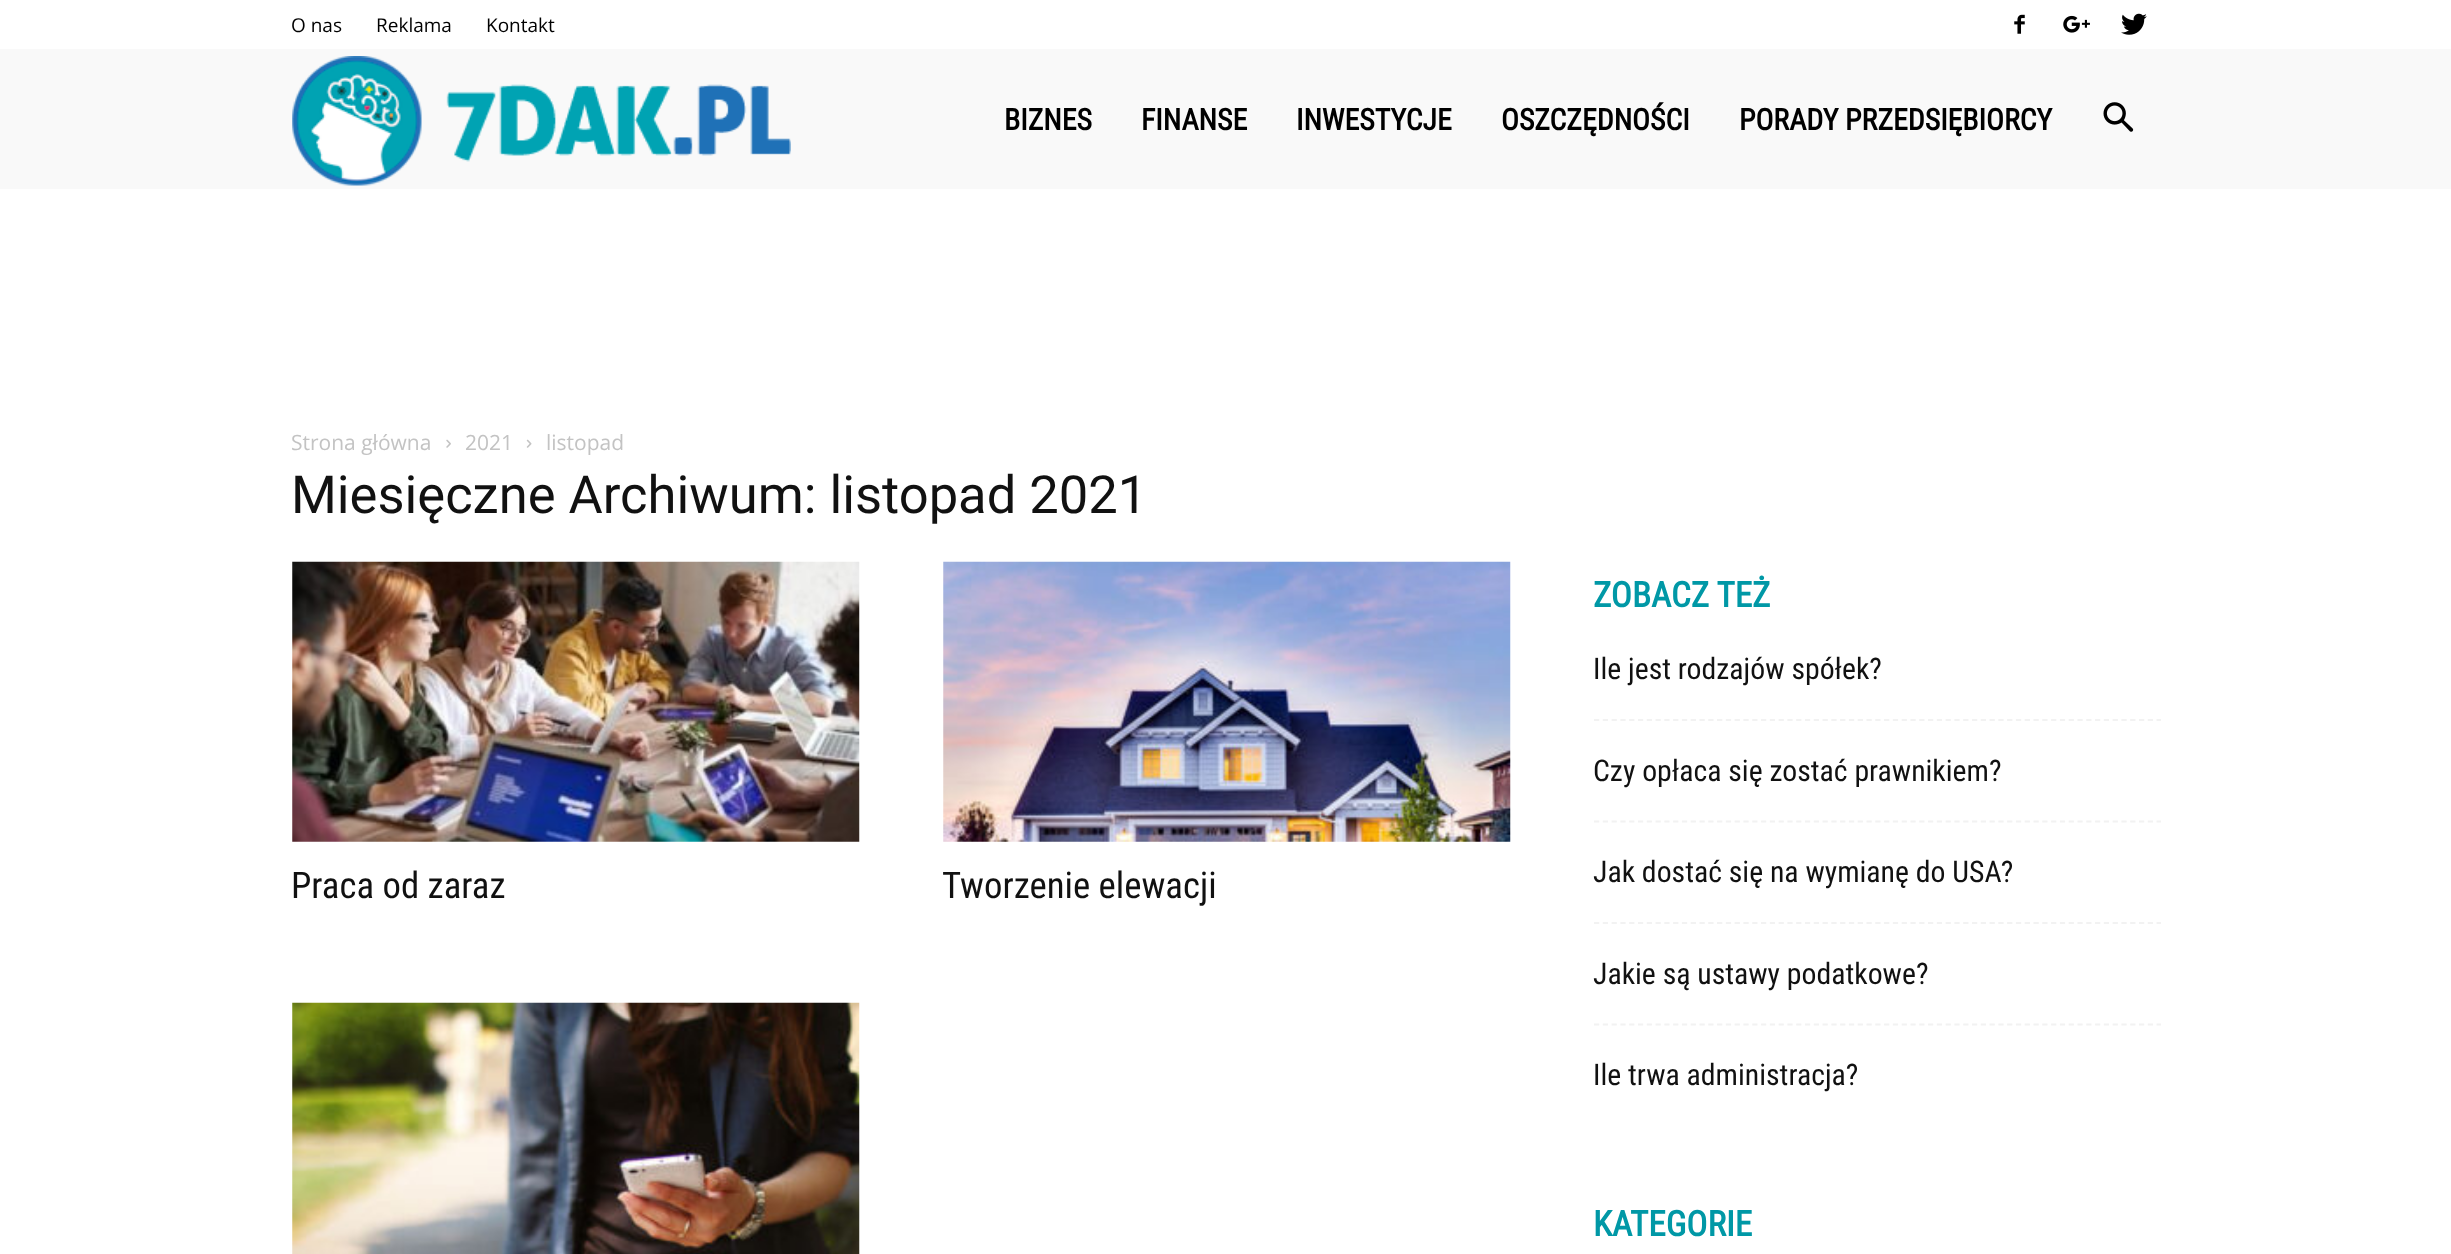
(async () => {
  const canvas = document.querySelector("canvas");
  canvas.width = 2451;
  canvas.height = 1254;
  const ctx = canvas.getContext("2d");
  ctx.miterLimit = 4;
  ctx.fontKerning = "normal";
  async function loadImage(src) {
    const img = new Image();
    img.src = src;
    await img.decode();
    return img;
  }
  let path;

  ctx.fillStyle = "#ffffff";
  ctx.fillRect(0, 0, 2451, 1254);
  ctx.drawImage(await loadImage("img/1.png"), 2014, 14, 11, 20);
  ctx.drawImage(await loadImage("img/2.png"), 2063, 15, 27, 18);
  ctx.drawImage(await loadImage("img/3.png"), 2121, 13, 26, 22);
  ctx.fillStyle = "#f9f9f9";
  ctx.fillRect(0, 49, 2451, 140);
  ctx.drawImage(await loadImage("img/4.png"), 292, 56, 499, 130);
  ctx.drawImage(await loadImage("img/5.png"), 2103, 102, 31, 30);
  ctx.drawImage(await loadImage("img/6.png"), 446, 439, 5, 9);
  ctx.drawImage(await loadImage("img/7.png"), 526, 439, 6, 9);
  ctx.drawImage(await loadImage("img/8.png"), 292, 561, 568, 281);
  ctx.drawImage(await loadImage("img/9.png"), 943, 561, 568, 281);
  ctx.drawImage(await loadImage("img/10.png"), 292, 1002, 568, 252);
  path = new Path2D("M1594 720H2161");
  ctx.strokeStyle = "#f2f2f2";
  ctx.lineWidth = 1.8;
  ctx.setLineDash([5.25, 3.54]);
  ctx.stroke(path);
  path = new Path2D("M1594 821.5H2161");
  ctx.stroke(path);
  path = new Path2D("M1594 923H2161");
  ctx.stroke(path);
  path = new Path2D("M1594 1024.5H2161");
  ctx.stroke(path);
  ctx.font = "19px Open Sans";
  ctx.fillStyle = "#000000";
  for (const [text, x, y] of [
    ["O nas", 291, 32],
    ["Reklama", 376, 32],
    ["Kontakt", 486, 32],
  ]) {
    ctx.fillText(text, x, y);
  }
  ctx.font = "bold 29.75px Roboto Condensed";
  for (const [text, x, y] of [
    ["BIZNES", 1004, 130],
    ["FINANSE", 1141, 130],
    ["INWESTYCJE", 1296, 130],
    ["OSZCZĘDNOŚCI", 1501, 130],
    ["PORADY PRZEDSIĘBIORCY", 1739, 130],
  ]) {
    ctx.fillText(text, x, y);
  }
  ctx.font = "21px Open Sans";
  ctx.fillStyle = "#c3c3c3";
  for (const [text, x, y] of [
    ["Strona główna", 291, 450],
    ["2021", 465, 450],
    ["listopad", 546, 450],
  ]) {
    ctx.fillText(text, x, y);
  }
  ctx.font = "52.5px Roboto";
  ctx.fillStyle = "#111111";
  ctx.fillText("Miesięczne Archiwum: listopad 2021", 291, 513);
  ctx.font = "36.75px Roboto Condensed";
  ctx.fillText("Praca od zaraz", 291, 898);
  ctx.fillText("Tworzenie elewacji", 942, 898);
  ctx.font = "bold 35px Roboto Condensed";
  ctx.fillStyle = "#0098a6";
  ctx.fillText("ZOBACZ TEŻ", 1593, 607);
  ctx.font = "29.75px Roboto Condensed";
  ctx.fillStyle = "#111111";
  for (const [text, x, y] of [
    ["Ile jest rodzajów spółek?", 1593, 679],
    ["Czy opłaca się zostać prawnikiem?", 1593, 781],
    ["Jak dostać się na wymianę do USA?", 1593, 882],
    ["Jakie są ustawy podatkowe?", 1593, 984],
    ["Ile trwa administracja?", 1593, 1085],
  ]) {
    ctx.fillText(text, x, y);
  }
  ctx.font = "bold 35px Roboto Condensed";
  ctx.fillStyle = "#0098a6";
  ctx.fillText("KATEGORIE", 1593, 1236);
})();
